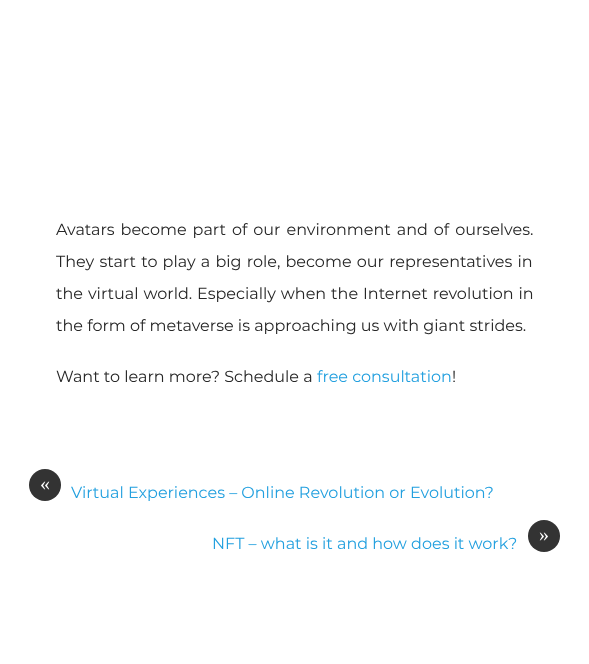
(async () => {
  const canvas = document.querySelector("canvas");
  canvas.width = 589;
  canvas.height = 664;
  const ctx = canvas.getContext("2d");
  ctx.miterLimit = 4;
  ctx.fontKerning = "normal";

  ctx.fillStyle = "#ffffff";
  ctx.fillRect(0, 0, 589, 664);
  ctx.fillStyle = "#333333";
  ctx.beginPath();
  ctx.arc(45, 485, 16, 0, Math.PI * 2);
  ctx.fill();
  ctx.beginPath();
  ctx.arc(544, 536, 16, 0, Math.PI * 2);
  ctx.fill();
  ctx.wordSpacing = "1.75px";
  ctx.font = "16px Montserrat";
  ctx.fillStyle = "#272727";
  ctx.fillText("Avatars become part of our environment and of ourselves.", 56, 235);
  ctx.wordSpacing = "1px";
  ctx.fillText("They start to play a big role, become our representatives in", 56, 267);
  ctx.wordSpacing = "0.75px";
  ctx.fillText("the virtual world. Especially when the Internet revolution in", 56, 299);
  ctx.wordSpacing = "0px";
  ctx.fillText("the form of metaverse is approaching us with giant strides.", 56, 331);
  ctx.fillText("Want to learn more? Schedule a", 56, 382);
  ctx.fillStyle = "#23a0df";
  ctx.fillText("free consultation", 317, 382);
  ctx.fillStyle = "#272727";
  ctx.fillText("!", 452, 382);
  ctx.font = "20px Liberation Serif";
  ctx.fillStyle = "#ffffff";
  ctx.fillText("«", 40, 490);
  ctx.font = "16px Montserrat";
  ctx.fillStyle = "#23a0df";
  ctx.fillText("Virtual Experiences – Online Revolution or Evolution?", 71, 498);
  ctx.fillText("NFT – what is it and how does it work?", 212, 549);
  ctx.font = "20px Liberation Serif";
  ctx.fillStyle = "#ffffff";
  ctx.fillText("»", 539, 541);
})();
